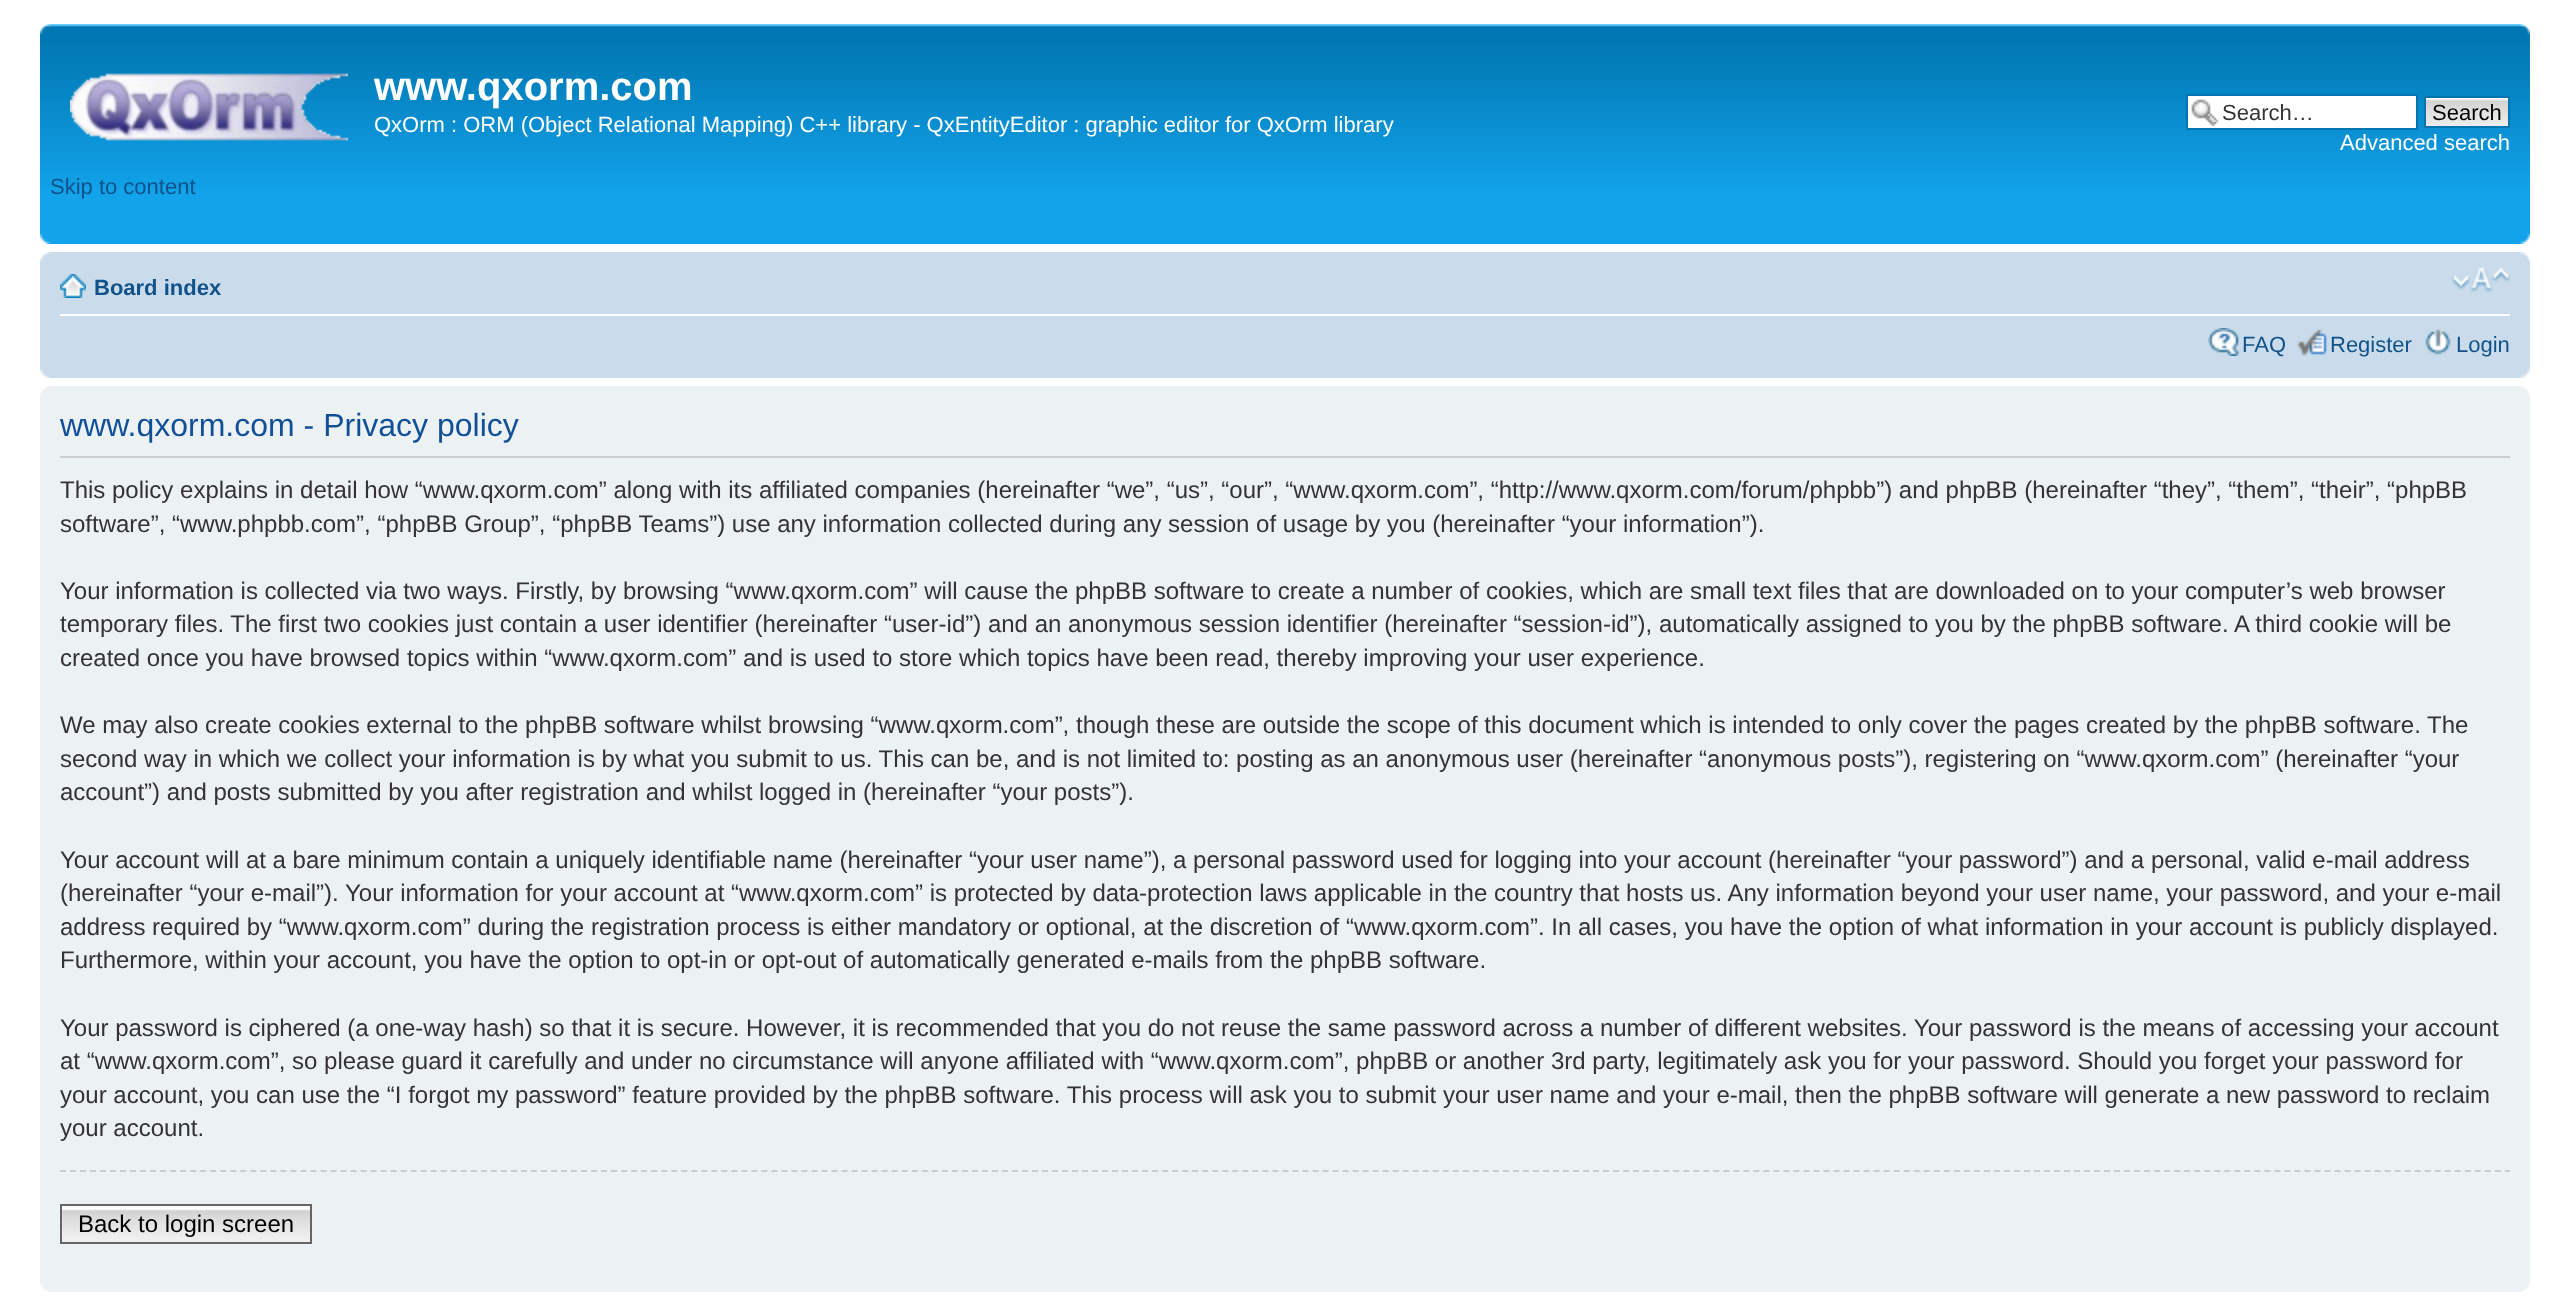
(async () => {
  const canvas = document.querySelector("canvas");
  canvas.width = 2569;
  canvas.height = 1299;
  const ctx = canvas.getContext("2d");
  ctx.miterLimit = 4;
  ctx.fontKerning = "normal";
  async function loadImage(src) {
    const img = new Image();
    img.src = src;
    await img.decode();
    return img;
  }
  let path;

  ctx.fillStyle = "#ffffff";
  ctx.fillRect(0, 0, 2569, 1299);
  ctx.fillStyle = "#12a3eb";
  ctx.fillRect(40, 188, 2490, 56);
  ctx.drawImage(await loadImage("img/1.png"), 40, 24, 2490, 164);
  ctx.drawImage(await loadImage("img/2.png"), 40, 24, 11, 10);
  ctx.drawImage(await loadImage("img/3.png"), 2519, 24, 11, 10);
  ctx.drawImage(await loadImage("img/4.png"), 70, 73, 278, 68);
  ctx.fillStyle = "#ffffff";
  ctx.fillRect(2188, 96, 228, 32);
  ctx.drawImage(await loadImage("img/5.png"), 2191, 99, 28, 27);
  ctx.strokeStyle = "#0075b0";
  ctx.lineWidth = 2;
  ctx.strokeRect(2187, 95, 230, 34);
  ctx.drawImage(await loadImage("img/6.png"), 2426, 98, 82, 28);
  ctx.strokeRect(2425, 97, 84, 30);
  ctx.drawImage(await loadImage("img/7.png"), 40, 234, 11, 10);
  ctx.drawImage(await loadImage("img/8.png"), 2519, 234, 11, 10);
  ctx.fillStyle = "#cadceb";
  ctx.fillRect(40, 252, 2490, 126);
  ctx.drawImage(await loadImage("img/9.png"), 40, 252, 11, 10);
  ctx.drawImage(await loadImage("img/10.png"), 2519, 252, 11, 10);
  ctx.fillStyle = "#ffffff";
  ctx.fillRect(60, 314, 2450, 2);
  ctx.drawImage(await loadImage("img/11.png"), 60, 274, 26, 24);
  ctx.drawImage(await loadImage("img/12.png"), 2452, 267, 58, 26);
  ctx.drawImage(await loadImage("img/13.png"), 2208, 328, 32, 28);
  ctx.drawImage(await loadImage("img/14.png"), 2297, 329, 30, 27);
  ctx.drawImage(await loadImage("img/15.png"), 2425, 329, 26, 26);
  ctx.drawImage(await loadImage("img/16.png"), 40, 368, 10, 10);
  ctx.drawImage(await loadImage("img/17.png"), 2520, 368, 10, 10);
  ctx.fillStyle = "#ecf1f3";
  ctx.fillRect(40, 386, 2490, 906);
  ctx.drawImage(await loadImage("img/18.png"), 40, 386, 9, 10);
  ctx.drawImage(await loadImage("img/19.png"), 2521, 386, 9, 10);
  ctx.fillStyle = "#cccccc";
  ctx.fillRect(60, 456, 2450, 2);
  path = new Path2D("M60 1171H2510");
  ctx.strokeStyle = "#cccccc";
  ctx.setLineDash([6, 4.02]);
  ctx.stroke(path);
  ctx.drawImage(await loadImage("img/20.png"), 62, 1208, 248, 34);
  ctx.fillStyle = "#fafafa";
  ctx.fillRect(62, 1206, 248, 2);
  ctx.strokeStyle = "#666666";
  ctx.setLineDash([]);
  ctx.strokeRect(61, 1205, 250, 38);
  ctx.drawImage(await loadImage("img/21.png"), 40, 1282, 9, 10);
  ctx.drawImage(await loadImage("img/22.png"), 2521, 1282, 9, 10);
  ctx.font = "bold 40px Liberation Sans";
  ctx.fillStyle = "#ffffff";
  ctx.fillText("www.qxorm.com", 374, 100);
  ctx.font = "22px Liberation Sans";
  ctx.fillText("QxOrm : ORM (Object Relational Mapping) C++ library - QxEntityEditor : graphic editor for QxOrm library", 374, 132);
  ctx.fillStyle = "#105289";
  ctx.fillText("Skip to content", 50, 194);
  ctx.fillStyle = "#333333";
  ctx.fillText("Search…", 2222, 120);
  ctx.fillStyle = "#000000";
  ctx.fillText("Search", 2432, 120);
  ctx.fillStyle = "#ffffff";
  ctx.fillText("Advanced search", 2340, 150);
  ctx.font = "bold 22px Liberation Sans";
  ctx.fillStyle = "#105289";
  ctx.fillText("Board index", 94, 295);
  ctx.font = "22px Liberation Sans";
  for (const [text, x, y] of [
    ["FAQ", 2242, 352],
    ["Register", 2330, 352],
    ["Login", 2456, 352],
  ]) {
    ctx.fillText(text, x, y);
  }
  ctx.font = "32px Liberation Sans";
  ctx.fillStyle = "#115098";
  ctx.fillText("www.qxorm.com - Privacy policy", 60, 436);
  ctx.font = "24px Liberation Sans";
  ctx.fillStyle = "#333333";
  for (const [text, x, y] of [
    ["This policy explains in detail how “www.qxorm.com” along with its affiliated companies (hereinafter “we”, “us”, “our”, “www.qxorm.com”, “http://www.qxorm.com/forum/phpbb”) and phpBB (hereinafter “they”, “them”, “their”, “phpBB", 60, 498],
    ["software”, “www.phpbb.com”, “phpBB Group”, “phpBB Teams”) use any information collected during any session of usage by you (hereinafter “your information”).", 60, 532],
    ["Your information is collected via two ways. Firstly, by browsing “www.qxorm.com” will cause the phpBB software to create a number of cookies, which are small text files that are downloaded on to your computer’s web browser", 60, 599],
    ["temporary files. The first two cookies just contain a user identifier (hereinafter “user-id”) and an anonymous session identifier (hereinafter “session-id”), automatically assigned to you by the phpBB software. A third cookie will be", 60, 632],
    ["created once you have browsed topics within “www.qxorm.com” and is used to store which topics have been read, thereby improving your user experience.", 60, 666],
    ["We may also create cookies external to the phpBB software whilst browsing “www.qxorm.com”, though these are outside the scope of this document which is intended to only cover the pages created by the phpBB software. The", 60, 733],
    ["second way in which we collect your information is by what you submit to us. This can be, and is not limited to: posting as an anonymous user (hereinafter “anonymous posts”), registering on “www.qxorm.com” (hereinafter “your", 60, 767],
    ["account”) and posts submitted by you after registration and whilst logged in (hereinafter “your posts”).", 60, 800],
    ["Your account will at a bare minimum contain a uniquely identifiable name (hereinafter “your user name”), a personal password used for logging into your account (hereinafter “your password”) and a personal, valid e-mail address", 60, 868],
    ["(hereinafter “your e-mail”). Your information for your account at “www.qxorm.com” is protected by data-protection laws applicable in the country that hosts us. Any information beyond your user name, your password, and your e-mail", 60, 901],
    ["address required by “www.qxorm.com” during the registration process is either mandatory or optional, at the discretion of “www.qxorm.com”. In all cases, you have the option of what information in your account is publicly displayed.", 60, 935],
    ["Furthermore, within your account, you have the option to opt-in or opt-out of automatically generated e-mails from the phpBB software.", 60, 968],
    ["Your password is ciphered (a one-way hash) so that it is secure. However, it is recommended that you do not reuse the same password across a number of different websites. Your password is the means of accessing your account", 60, 1036],
    ["at “www.qxorm.com”, so please guard it carefully and under no circumstance will anyone affiliated with “www.qxorm.com”, phpBB or another 3rd party, legitimately ask you for your password. Should you forget your password for", 60, 1069],
    ["your account, you can use the “I forgot my password” feature provided by the phpBB software. This process will ask you to submit your user name and your e-mail, then the phpBB software will generate a new password to reclaim", 60, 1103],
    ["your account.", 60, 1136],
  ]) {
    ctx.fillText(text, x, y);
  }
  ctx.fillStyle = "#000000";
  ctx.fillText("Back to login screen", 78, 1232);
})();
